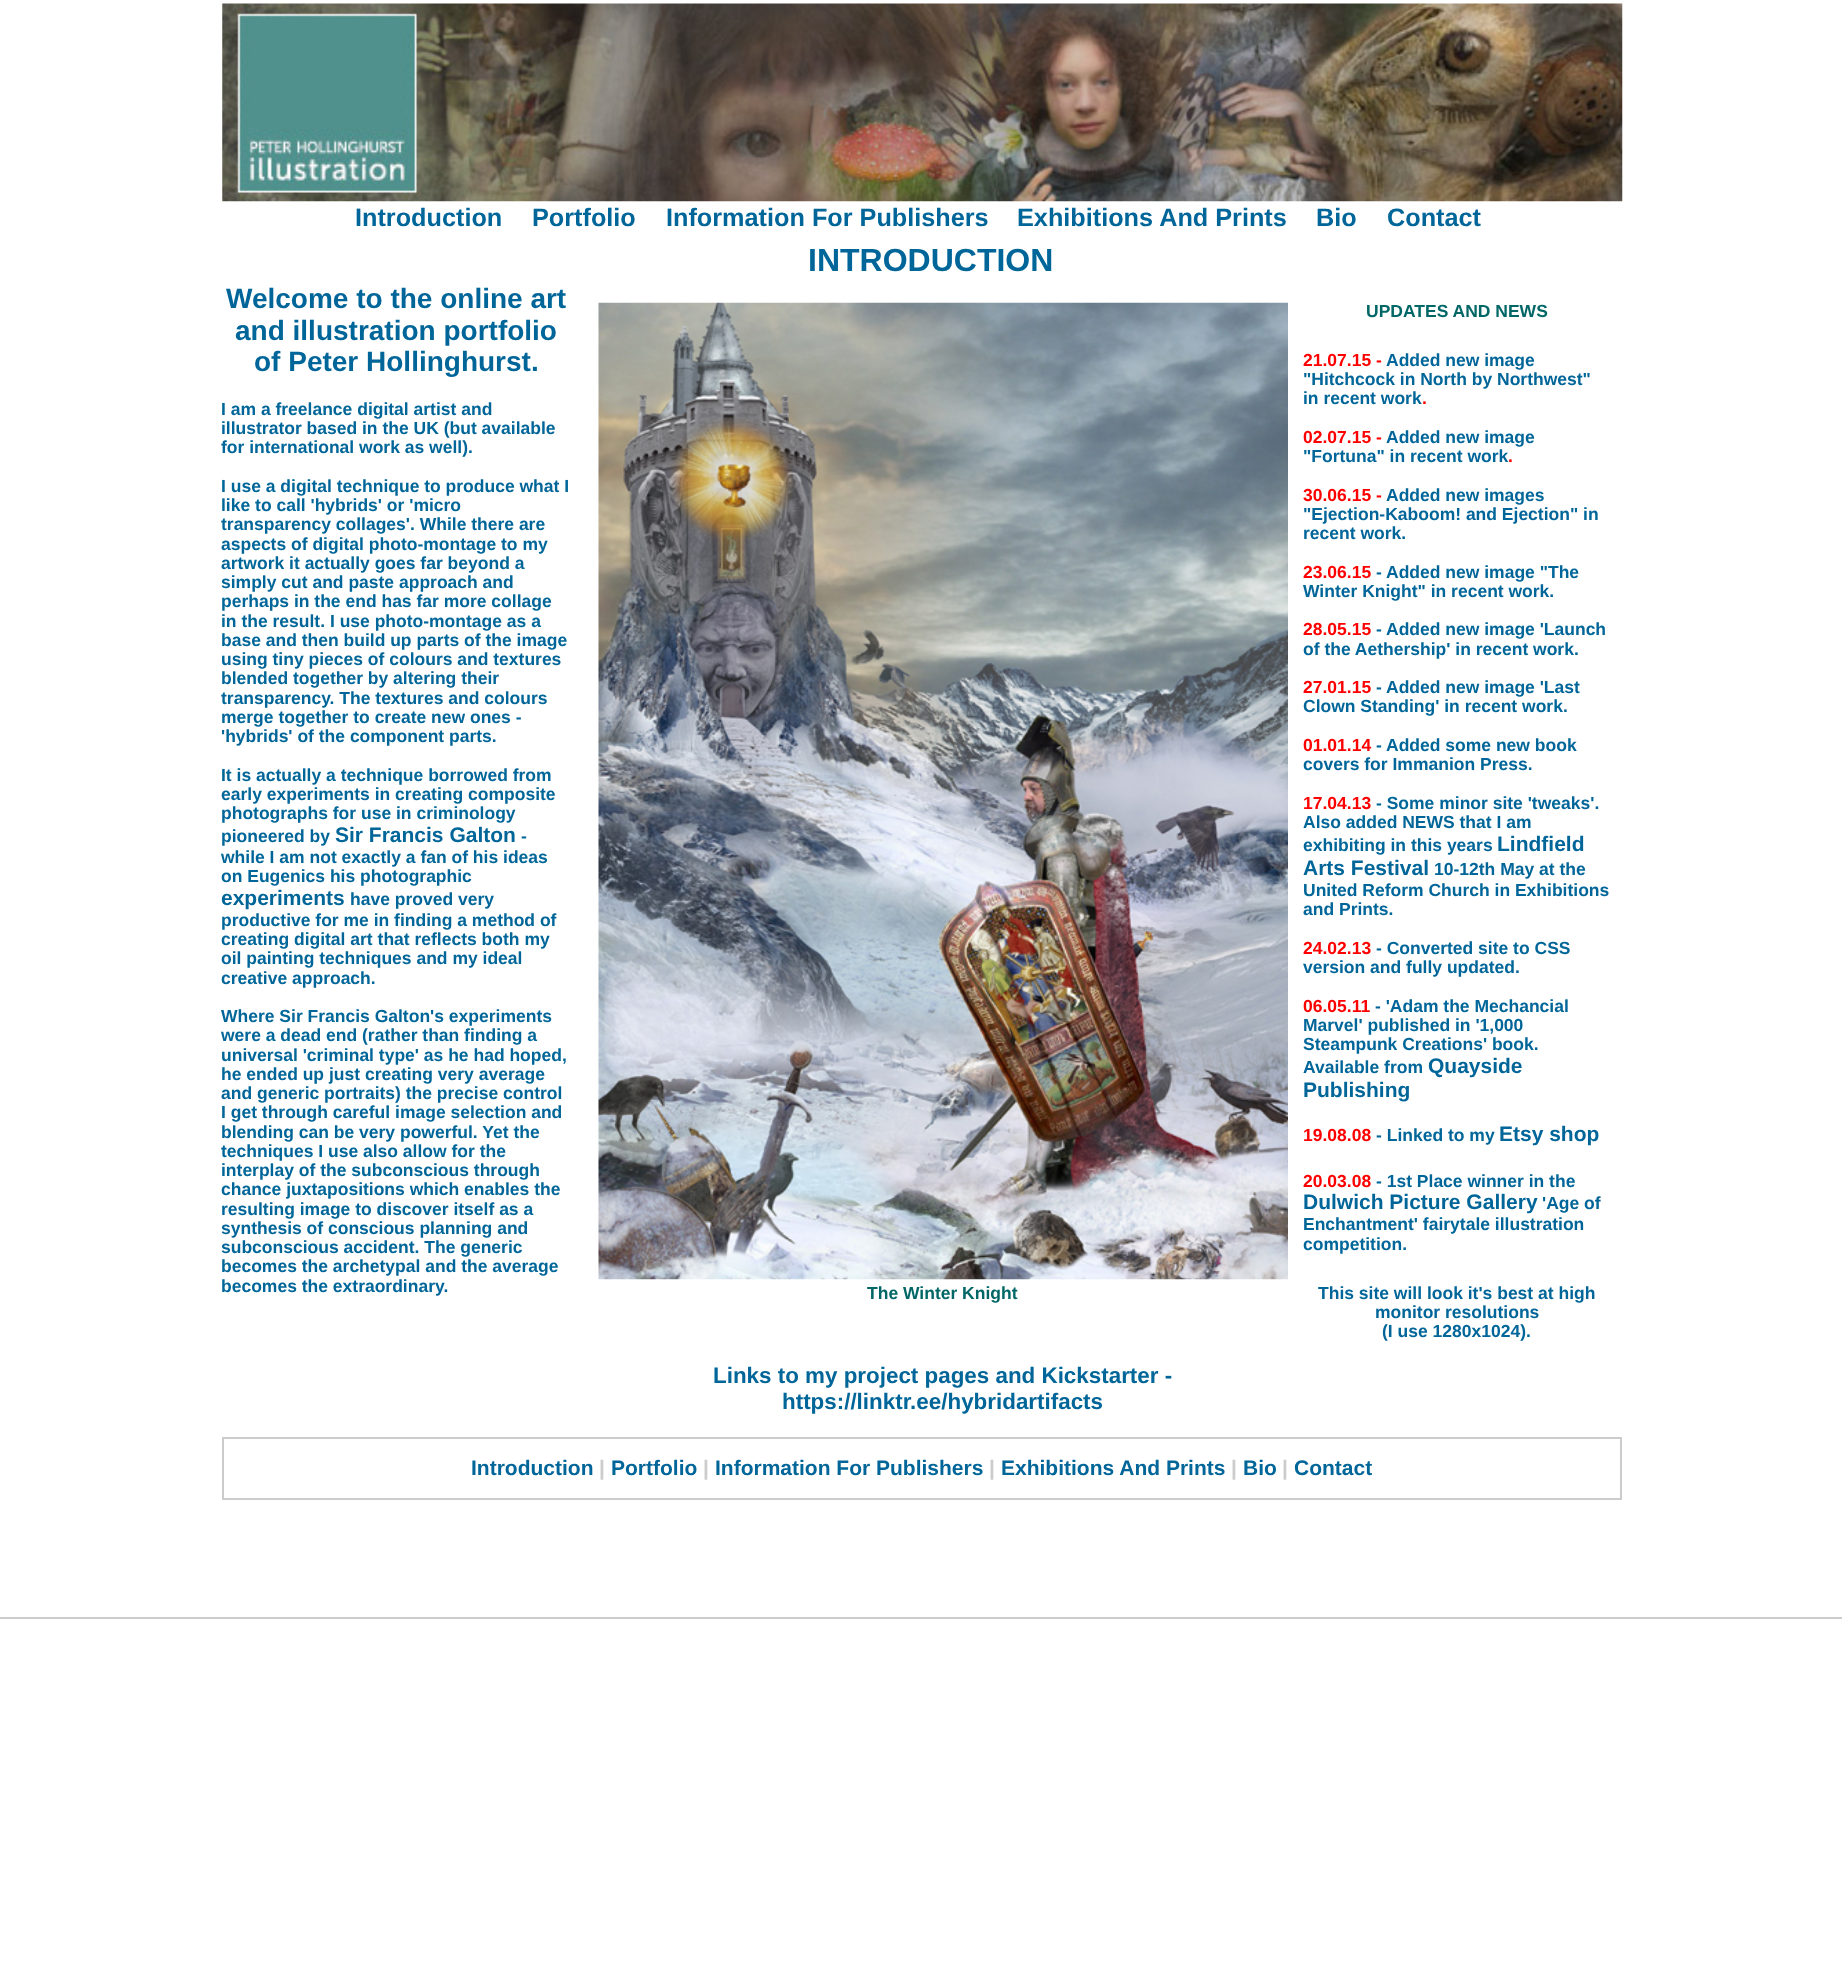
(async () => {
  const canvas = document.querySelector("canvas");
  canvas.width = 1842;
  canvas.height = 1966;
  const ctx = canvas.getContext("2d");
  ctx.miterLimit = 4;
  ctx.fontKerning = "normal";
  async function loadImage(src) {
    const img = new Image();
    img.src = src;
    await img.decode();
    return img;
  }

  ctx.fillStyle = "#ffffff";
  ctx.fillRect(0, 0, 1842, 1966);
  ctx.drawImage(await loadImage("img/1.png"), 222, 3, 1401, 199);
  ctx.drawImage(await loadImage("img/2.png"), 598, 302, 690, 978);
  ctx.strokeStyle = "#cccccc";
  ctx.lineWidth = 2;
  ctx.strokeRect(223, 1438, 1398, 61);
  ctx.fillStyle = "#cccccc";
  ctx.fillRect(0, 1617, 1842, 2);
  ctx.font = "bold 25.25px Liberation Sans";
  ctx.fillStyle = "#006699";
  for (const [text, x, y] of [
    ["Introduction", 355, 226],
    ["Portfolio", 532, 226],
    ["Information For Publishers", 666, 226],
    ["Exhibitions And Prints", 1017, 226],
    ["Bio", 1316, 226],
    ["Contact", 1387, 226],
  ]) {
    ctx.fillText(text, x, y);
  }
  ctx.font = "bold 32px Liberation Sans";
  ctx.fillText("INTRODUCTION", 808, 271);
  ctx.font = "bold 28px Liberation Sans";
  for (const [text, x, y] of [
    ["Welcome to the online art", 226, 308],
    ["and illustration portfolio", 235, 340],
    ["of Peter Hollinghurst.", 254, 371],
  ]) {
    ctx.fillText(text, x, y);
  }
  ctx.font = "bold 17.5px Liberation Sans";
  for (const [text, x, y] of [
    ["I am a freelance digital artist and", 221, 415],
    ["illustrator based in the UK (but available", 221, 434],
    ["for international work as well).", 221, 453],
    ["I use a digital technique to produce what I", 221, 492],
    ["like to call 'hybrids' or 'micro", 221, 511],
    ["transparency collages'. While there are", 221, 530],
    ["aspects of digital photo-montage to my", 221, 550],
    ["artwork it actually goes far beyond a", 221, 569],
    ["simply cut and paste approach and", 221, 588],
    ["perhaps in the end has far more collage", 221, 607],
    ["in the result. I use photo-montage as a", 221, 627],
    ["base and then build up parts of the image", 221, 646],
    ["using tiny pieces of colours and textures", 221, 665],
    ["blended together by altering their", 221, 684],
    ["transparency. The textures and colours", 221, 704],
    ["merge together to create new ones -", 221, 723],
    ["'hybrids' of the component parts.", 221, 742],
    ["It is actually a technique borrowed from", 221, 781],
    ["early experiments in creating composite", 221, 800],
    ["photographs for use in criminology", 221, 819],
    ["pioneered by", 221, 842],
  ]) {
    ctx.fillText(text, x, y);
  }
  ctx.font = "bold 21px Liberation Sans";
  ctx.fillText("Sir Francis Galton", 335, 842);
  ctx.font = "bold 17.5px Liberation Sans";
  for (const [text, x, y] of [
    ["-", 521, 842],
    ["while I am not exactly a fan of his ideas", 221, 863],
    ["on Eugenics his photographic", 221, 882],
  ]) {
    ctx.fillText(text, x, y);
  }
  ctx.font = "bold 21px Liberation Sans";
  ctx.fillText("experiments", 221, 905);
  ctx.font = "bold 17.5px Liberation Sans";
  for (const [text, x, y] of [
    ["have proved very", 350, 905],
    ["productive for me in finding a method of", 221, 926],
    ["creating digital art that reflects both my", 221, 945],
    ["oil painting techniques and my ideal", 221, 964],
    ["creative approach.", 221, 984],
    ["Where Sir Francis Galton's experiments", 221, 1022],
    ["were a dead end (rather than finding a", 221, 1041],
    ["universal 'criminal type' as he had hoped,", 221, 1061],
    ["he ended up just creating very average", 221, 1080],
    ["and generic portraits) the precise control", 221, 1099],
    ["I get through careful image selection and", 221, 1118],
    ["blending can be very powerful. Yet the", 221, 1138],
    ["techniques I use also allow for the", 221, 1157],
    ["interplay of the subconscious through", 221, 1176],
    ["chance juxtapositions which enables the", 221, 1195],
    ["resulting image to discover itself as a", 221, 1215],
    ["synthesis of conscious planning and", 221, 1234],
    ["subconscious accident. The generic", 221, 1253],
    ["becomes the archetypal and the average", 221, 1272],
    ["becomes the extraordinary.", 221, 1292],
  ]) {
    ctx.fillText(text, x, y);
  }
  ctx.fillStyle = "#006666";
  ctx.fillText("The Winter Knight", 867, 1299);
  ctx.font = "bold 22.4px Liberation Sans";
  ctx.fillStyle = "#006699";
  ctx.fillText("Links to my project pages and Kickstarter -", 713, 1383);
  ctx.fillText("https://linktr.ee/hybridartifacts", 782, 1409);
  ctx.font = "bold 17.5px Liberation Sans";
  ctx.fillStyle = "#006666";
  ctx.fillText("UPDATES AND NEWS", 1366, 317);
  ctx.fillStyle = "#ff0000";
  ctx.fillText("21.07.15 -", 1303, 366);
  ctx.fillStyle = "#006699";
  for (const [text, x, y] of [
    ["Added new image", 1386, 366],
    ["\"Hitchcock in North by Northwest\"", 1303, 385],
    ["in recent work", 1303, 404],
  ]) {
    ctx.fillText(text, x, y);
  }
  ctx.fillStyle = "#ff0000";
  ctx.fillText(".", 1422, 404);
  ctx.fillText("02.07.15 -", 1303, 443);
  ctx.fillStyle = "#006699";
  ctx.fillText("Added new image", 1386, 443);
  ctx.fillText("\"Fortuna\" in recent work", 1303, 462);
  ctx.fillStyle = "#ff0000";
  ctx.fillText(".", 1508, 462);
  ctx.fillText("30.06.15 -", 1303, 501);
  ctx.fillStyle = "#006699";
  for (const [text, x, y] of [
    ["Added new images", 1386, 501],
    ["\"Ejection-Kaboom! and Ejection\" in", 1303, 520],
    ["recent work.", 1303, 539],
  ]) {
    ctx.fillText(text, x, y);
  }
  ctx.fillStyle = "#ff0000";
  ctx.fillText("23.06.15", 1303, 578);
  ctx.fillStyle = "#006699";
  ctx.fillText("- Added new image \"The", 1376, 578);
  ctx.fillText("Winter Knight\" in recent work.", 1303, 597);
  ctx.fillStyle = "#ff0000";
  ctx.fillText("28.05.15", 1303, 635);
  ctx.fillStyle = "#006699";
  ctx.fillText("- Added new image 'Launch", 1376, 635);
  ctx.fillText("of the Aethership' in recent work.", 1303, 655);
  ctx.fillStyle = "#ff0000";
  ctx.fillText("27.01.15", 1303, 693);
  ctx.fillStyle = "#006699";
  ctx.fillText("- Added new image 'Last", 1376, 693);
  ctx.fillText("Clown Standing' in recent work.", 1303, 712);
  ctx.fillStyle = "#ff0000";
  ctx.fillText("01.01.14", 1303, 751);
  ctx.fillStyle = "#006699";
  ctx.fillText("- Added some new book", 1376, 751);
  ctx.fillText("covers for Immanion Press.", 1303, 770);
  ctx.fillStyle = "#ff0000";
  ctx.fillText("17.04.13", 1303, 809);
  ctx.fillStyle = "#006699";
  for (const [text, x, y] of [
    ["- Some minor site 'tweaks'.", 1376, 809],
    ["Also added NEWS that I am", 1303, 828],
    ["exhibiting in this years", 1303, 851],
  ]) {
    ctx.fillText(text, x, y);
  }
  ctx.font = "bold 21px Liberation Sans";
  ctx.fillText("Lindfield", 1497, 851);
  ctx.fillText("Arts Festival", 1303, 875);
  ctx.font = "bold 17.5px Liberation Sans";
  for (const [text, x, y] of [
    ["10-12th May at the", 1434, 875],
    ["United Reform Church in Exhibitions", 1303, 896],
    ["and Prints.", 1303, 915],
  ]) {
    ctx.fillText(text, x, y);
  }
  ctx.fillStyle = "#ff0000";
  ctx.fillText("24.02.13", 1303, 954);
  ctx.fillStyle = "#006699";
  ctx.fillText("- Converted site to CSS", 1376, 954);
  ctx.fillText("version and fully updated.", 1303, 973);
  ctx.fillStyle = "#ff0000";
  ctx.fillText("06.05.11", 1303, 1012);
  ctx.fillStyle = "#006699";
  for (const [text, x, y] of [
    ["- 'Adam the Mechancial", 1375, 1012],
    ["Marvel' published in '1,000", 1303, 1031],
    ["Steampunk Creations' book.", 1303, 1050],
    ["Available from", 1303, 1073],
  ]) {
    ctx.fillText(text, x, y);
  }
  ctx.font = "bold 21px Liberation Sans";
  ctx.fillText("Quayside", 1428, 1073);
  ctx.fillText("Publishing", 1303, 1097);
  ctx.font = "bold 17.5px Liberation Sans";
  ctx.fillStyle = "#ff0000";
  ctx.fillText("19.08.08", 1303, 1141);
  ctx.fillStyle = "#006699";
  ctx.fillText("- Linked to my", 1376, 1141);
  ctx.font = "bold 21px Liberation Sans";
  ctx.fillText("Etsy shop", 1499, 1141);
  ctx.font = "bold 17.5px Liberation Sans";
  ctx.fillStyle = "#ff0000";
  ctx.fillText("20.03.08", 1303, 1187);
  ctx.fillStyle = "#006699";
  ctx.fillText("- 1st Place winner in the", 1376, 1187);
  ctx.font = "bold 21px Liberation Sans";
  ctx.fillText("Dulwich Picture Gallery", 1303, 1209);
  ctx.font = "bold 17.5px Liberation Sans";
  for (const [text, x, y] of [
    ["'Age of", 1542, 1209],
    ["Enchantment' fairytale illustration", 1303, 1230],
    ["competition.", 1303, 1250],
    ["This site will look it's best at high", 1318, 1299],
    ["monitor resolutions", 1375, 1318],
    ["(I use 1280x1024).", 1382, 1337],
  ]) {
    ctx.fillText(text, x, y);
  }
  ctx.font = "bold 21px Liberation Sans";
  ctx.fillText("Introduction", 471, 1475);
  ctx.fillStyle = "#cccccc";
  ctx.fillText("|", 599, 1475);
  ctx.fillStyle = "#006699";
  ctx.fillText("Portfolio", 611, 1475);
  ctx.fillStyle = "#cccccc";
  ctx.fillText("|", 703, 1475);
  ctx.fillStyle = "#006699";
  ctx.fillText("Information For Publishers", 715, 1475);
  ctx.fillStyle = "#cccccc";
  ctx.fillText("|", 989, 1475);
  ctx.fillStyle = "#006699";
  ctx.fillText("Exhibitions And Prints", 1001, 1475);
  ctx.fillStyle = "#cccccc";
  ctx.fillText("|", 1231, 1475);
  ctx.fillStyle = "#006699";
  ctx.fillText("Bio", 1243, 1475);
  ctx.fillStyle = "#cccccc";
  ctx.fillText("|", 1282, 1475);
  ctx.fillStyle = "#006699";
  ctx.fillText("Contact", 1294, 1475);
})();
